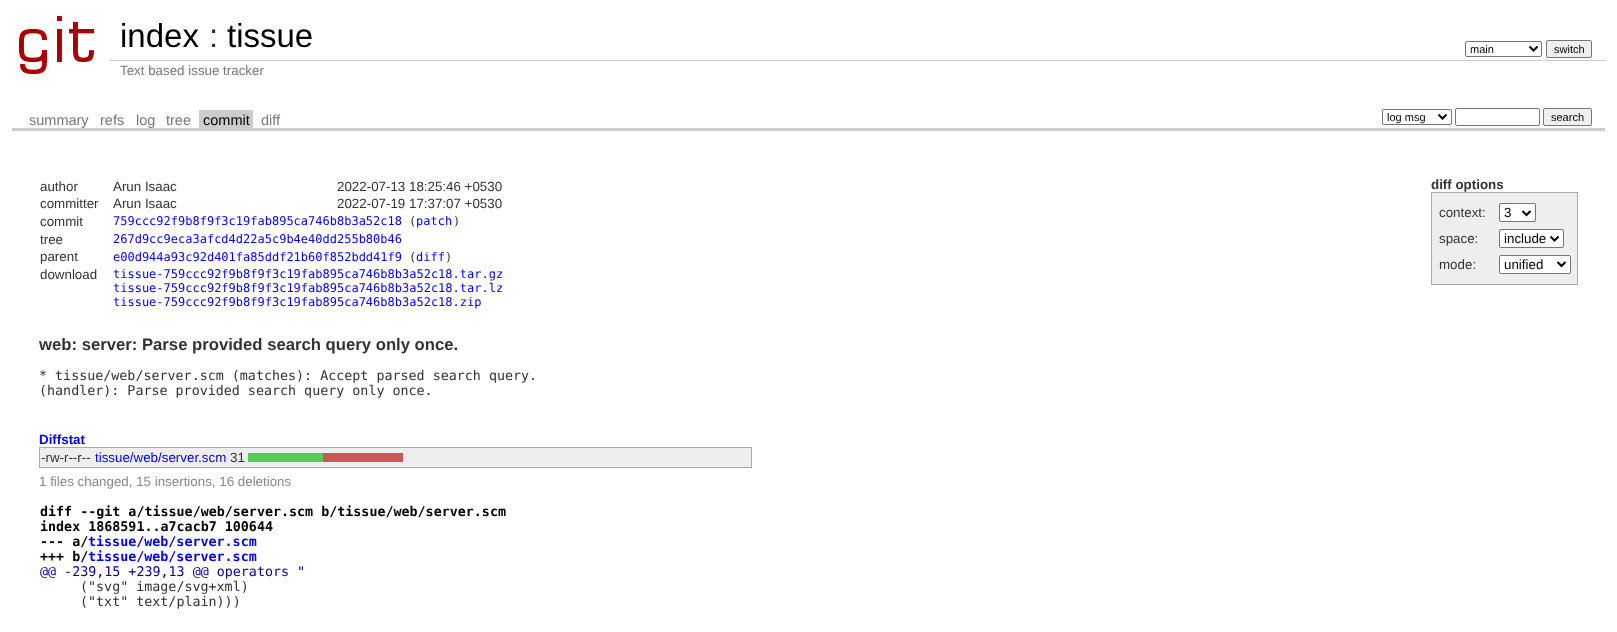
(async () => {
  const canvas = document.querySelector("canvas");
  canvas.width = 1617;
  canvas.height = 632;
  const ctx = canvas.getContext("2d");
  ctx.miterLimit = 4;
  ctx.fontKerning = "normal";
  async function loadImage(src) {
    const img = new Image();
    img.src = src;
    await img.decode();
    return img;
  }
  let path;

  ctx.fillStyle = "#ffffff";
  ctx.fillRect(0, 0, 1617, 632);
  ctx.drawImage(await loadImage("img/1.png"), 19, 16, 75, 58);
  ctx.beginPath();
  ctx.roundRect(1465.5, 41.5, 76, 15, 1.5);
  ctx.strokeStyle = "#767676";
  ctx.stroke();
  path = new Path2D("M1529.5 46.5L1533.5 50.5L1537.5 46.5");
  ctx.strokeStyle = "#000000";
  ctx.lineWidth = 2;
  ctx.stroke(path);
  ctx.fillStyle = "#efefef";
  ctx.beginPath();
  ctx.roundRect(1546.5, 40.5, 45, 17, 1.5);
  ctx.fill();
  ctx.strokeStyle = "#767676";
  ctx.lineWidth = 1;
  ctx.stroke();
  for (const [x, y, w, h, color] of [
    [110, 60, 1496, 1, "#cccccc"],
    [12, 128, 1593, 3, "#cccccc"],
    [199, 110, 54, 18, "#cccccc"],
  ]) {
    ctx.fillStyle = color;
    ctx.fillRect(x, y, w, h);
  }
  ctx.beginPath();
  ctx.roundRect(1382.5, 109.5, 69, 15, 1.5);
  ctx.stroke();
  path = new Path2D("M1438.5 114.5L1442.5 118.5L1446.5 114.5");
  ctx.strokeStyle = "#000000";
  ctx.lineWidth = 2;
  ctx.stroke(path);
  ctx.beginPath();
  ctx.roundRect(1455.5, 108.5, 84, 17, 1.5);
  ctx.strokeStyle = "#767676";
  ctx.lineWidth = 1;
  ctx.stroke();
  ctx.fillStyle = "#efefef";
  ctx.beginPath();
  ctx.roundRect(1543.5, 108.5, 48, 17, 1.5);
  ctx.fill();
  ctx.stroke();
  for (const [x, y, w, h, color] of [
    [1432, 193, 145, 91, "#eeeeee"],
    [1431, 192, 147, 1, "#aaaaaa"],
    [1577, 192, 1, 93, "#aaaaaa"],
    [1431, 284, 147, 1, "#aaaaaa"],
    [1431, 192, 1, 93, "#aaaaaa"],
  ]) {
    ctx.fillStyle = color;
    ctx.fillRect(x, y, w, h);
  }
  ctx.fillStyle = "#ffffff";
  ctx.beginPath();
  ctx.roundRect(1499.5, 203.5, 36, 18, 1.5);
  ctx.fill();
  ctx.stroke();
  path = new Path2D("M1522.5 211L1526.5 215L1530.5 211");
  ctx.strokeStyle = "#000000";
  ctx.lineWidth = 2;
  ctx.stroke(path);
  ctx.beginPath();
  ctx.roundRect(1499.5, 229.5, 64, 18, 1.5);
  ctx.fill();
  ctx.strokeStyle = "#767676";
  ctx.lineWidth = 1;
  ctx.stroke();
  path = new Path2D("M1550.5 236.5L1554.5 240.5L1558.5 236.5");
  ctx.strokeStyle = "#000000";
  ctx.lineWidth = 2;
  ctx.stroke(path);
  ctx.beginPath();
  ctx.roundRect(1499.5, 255.5, 71, 18, 1.5);
  ctx.fill();
  ctx.strokeStyle = "#767676";
  ctx.lineWidth = 1;
  ctx.stroke();
  path = new Path2D("M1557.5 262L1561.5 266L1565.5 262");
  ctx.strokeStyle = "#000000";
  ctx.lineWidth = 2;
  ctx.stroke(path);
  for (const [x, y, w, h, color] of [
    [40, 448, 711, 19, "#eeeeee"],
    [39, 447, 713, 1, "#aaaaaa"],
    [751, 447, 1, 21, "#aaaaaa"],
    [39, 467, 713, 1, "#aaaaaa"],
    [39, 447, 1, 21, "#aaaaaa"],
    [248, 453, 75, 9, "#55cc55"],
    [323, 453, 80, 9, "#cc5555"],
  ]) {
    ctx.fillStyle = color;
    ctx.fillRect(x, y, w, h);
  }
  ctx.font = "33px Liberation Sans";
  ctx.fillStyle = "#000000";
  ctx.fillText("index", 120, 47);
  ctx.fillStyle = "#333333";
  ctx.fillText(":", 209, 47);
  ctx.fillStyle = "#000000";
  ctx.fillText("tissue", 227, 47);
  ctx.font = "11px Liberation Sans";
  ctx.fillText("main", 1470, 53);
  ctx.fillText("switch", 1554, 53);
  ctx.font = "13.35px Liberation Sans";
  ctx.fillStyle = "#777777";
  ctx.fillText("Text based issue tracker", 120, 75);
  ctx.font = "14.5px Liberation Sans";
  for (const [text, x, y] of [
    ["summary", 29, 125],
    ["refs", 100, 125],
    ["log", 136, 125],
    ["tree", 166, 125],
  ]) {
    ctx.fillText(text, x, y);
  }
  ctx.fillStyle = "#000000";
  ctx.fillText("commit", 203, 125);
  ctx.fillStyle = "#777777";
  ctx.fillText("diff", 261, 125);
  ctx.font = "11px Liberation Sans";
  ctx.fillStyle = "#000000";
  ctx.fillText("log msg", 1387, 121);
  ctx.fillText("search", 1551, 121);
  ctx.font = "13.35px Liberation Sans";
  ctx.fillStyle = "#333333";
  for (const [text, x, y] of [
    ["author", 40, 191],
    ["Arun Isaac", 113, 191],
    ["2022-07-13 18:25:46 +0530", 337, 191],
    ["committer", 40, 208],
    ["Arun Isaac", 113, 208],
    ["2022-07-19 17:37:07 +0530", 337, 208],
    ["commit", 40, 226],
  ]) {
    ctx.fillText(text, x, y);
  }
  ctx.font = "12px DejaVu Sans Mono";
  ctx.fillStyle = "#0000ff";
  ctx.fillText("759ccc92f9b8f9f3c19fab895ca746b8b3a52c18", 113, 225);
  ctx.fillStyle = "#333333";
  ctx.fillText("(", 409, 225);
  ctx.fillStyle = "#0000ff";
  ctx.fillText("patch", 416, 225);
  ctx.fillStyle = "#333333";
  ctx.fillText(")", 453, 225);
  ctx.font = "13.35px Liberation Sans";
  ctx.fillText("tree", 40, 244);
  ctx.font = "12px DejaVu Sans Mono";
  ctx.fillStyle = "#0000ff";
  ctx.fillText("267d9cc9eca3afcd4d22a5c9b4e40dd255b80b46", 113, 243);
  ctx.font = "13.35px Liberation Sans";
  ctx.fillStyle = "#333333";
  ctx.fillText("parent", 40, 261);
  ctx.font = "12px DejaVu Sans Mono";
  ctx.fillStyle = "#0000ff";
  ctx.fillText("e00d944a93c92d401fa85ddf21b60f852bdd41f9", 113, 261);
  ctx.fillStyle = "#333333";
  ctx.fillText("(", 409, 261);
  ctx.fillStyle = "#0000ff";
  ctx.fillText("diff", 416, 261);
  ctx.fillStyle = "#333333";
  ctx.fillText(")", 445, 261);
  ctx.font = "13.35px Liberation Sans";
  ctx.fillText("download", 40, 279);
  ctx.font = "12px DejaVu Sans Mono";
  ctx.fillStyle = "#0000ff";
  for (const [text, x, y] of [
    ["tissue-759ccc92f9b8f9f3c19fab895ca746b8b3a52c18.tar.gz", 113, 278],
    ["tissue-759ccc92f9b8f9f3c19fab895ca746b8b3a52c18.tar.lz", 113, 292],
    ["tissue-759ccc92f9b8f9f3c19fab895ca746b8b3a52c18.zip", 113, 306],
  ]) {
    ctx.fillText(text, x, y);
  }
  ctx.font = "bold 13.35px Liberation Sans";
  ctx.fillStyle = "#333333";
  ctx.fillText("diff options", 1431, 189);
  ctx.font = "13.35px Liberation Sans";
  ctx.fillText("context:", 1439, 217);
  ctx.fillStyle = "#000000";
  ctx.fillText("3", 1504, 217);
  ctx.fillStyle = "#333333";
  ctx.fillText("space:", 1439, 243);
  ctx.fillStyle = "#000000";
  ctx.fillText("include", 1504, 243);
  ctx.fillStyle = "#333333";
  ctx.fillText("mode:", 1439, 269);
  ctx.fillStyle = "#000000";
  ctx.fillText("unified", 1504, 269);
  ctx.font = "bold 16.7px Liberation Sans";
  ctx.fillStyle = "#333333";
  ctx.fillText("web: server: Parse provided search query only once.", 39, 350);
  ctx.font = "13.35px DejaVu Sans Mono";
  ctx.fillText("* tissue/web/server.scm (matches): Accept parsed search query.", 39, 380);
  ctx.fillText("(handler): Parse provided search query only once.", 39, 395);
  ctx.font = "bold 13.35px Liberation Sans";
  ctx.fillStyle = "#0000ff";
  ctx.fillText("Diffstat", 39, 444);
  ctx.font = "13.35px Liberation Sans";
  ctx.fillStyle = "#333333";
  ctx.fillText("-rw-r--r--", 41, 462);
  ctx.fillStyle = "#0000ff";
  ctx.fillText("tissue/web/server.scm", 95, 462);
  ctx.fillStyle = "#333333";
  ctx.fillText("31", 230, 462);
  ctx.fillStyle = "#888888";
  ctx.fillText("1 files changed, 15 insertions, 16 deletions", 39, 486);
  ctx.font = "bold 13.35px DejaVu Sans Mono";
  ctx.fillStyle = "#000000";
  for (const [text, x, y] of [
    ["diff --git a/tissue/web/server.scm b/tissue/web/server.scm", 40, 516],
    ["index 1868591..a7cacb7 100644", 40, 531],
    ["--- a/", 40, 546],
  ]) {
    ctx.fillText(text, x, y);
  }
  ctx.fillStyle = "#0000ff";
  ctx.fillText("tissue/web/server.scm", 88, 546);
  ctx.fillStyle = "#000000";
  ctx.fillText("+++ b/", 40, 561);
  ctx.fillStyle = "#0000ff";
  ctx.fillText("tissue/web/server.scm", 88, 561);
  ctx.font = "13.35px DejaVu Sans Mono";
  ctx.fillStyle = "#000099";
  ctx.fillText("@@ -239,15 +239,13 @@ operators \"", 40, 576);
  ctx.fillStyle = "#333333";
  ctx.fillText("(\"svg\" image/svg+xml)", 80, 591);
  ctx.fillText("(\"txt\" text/plain)))", 80, 606);
})();
